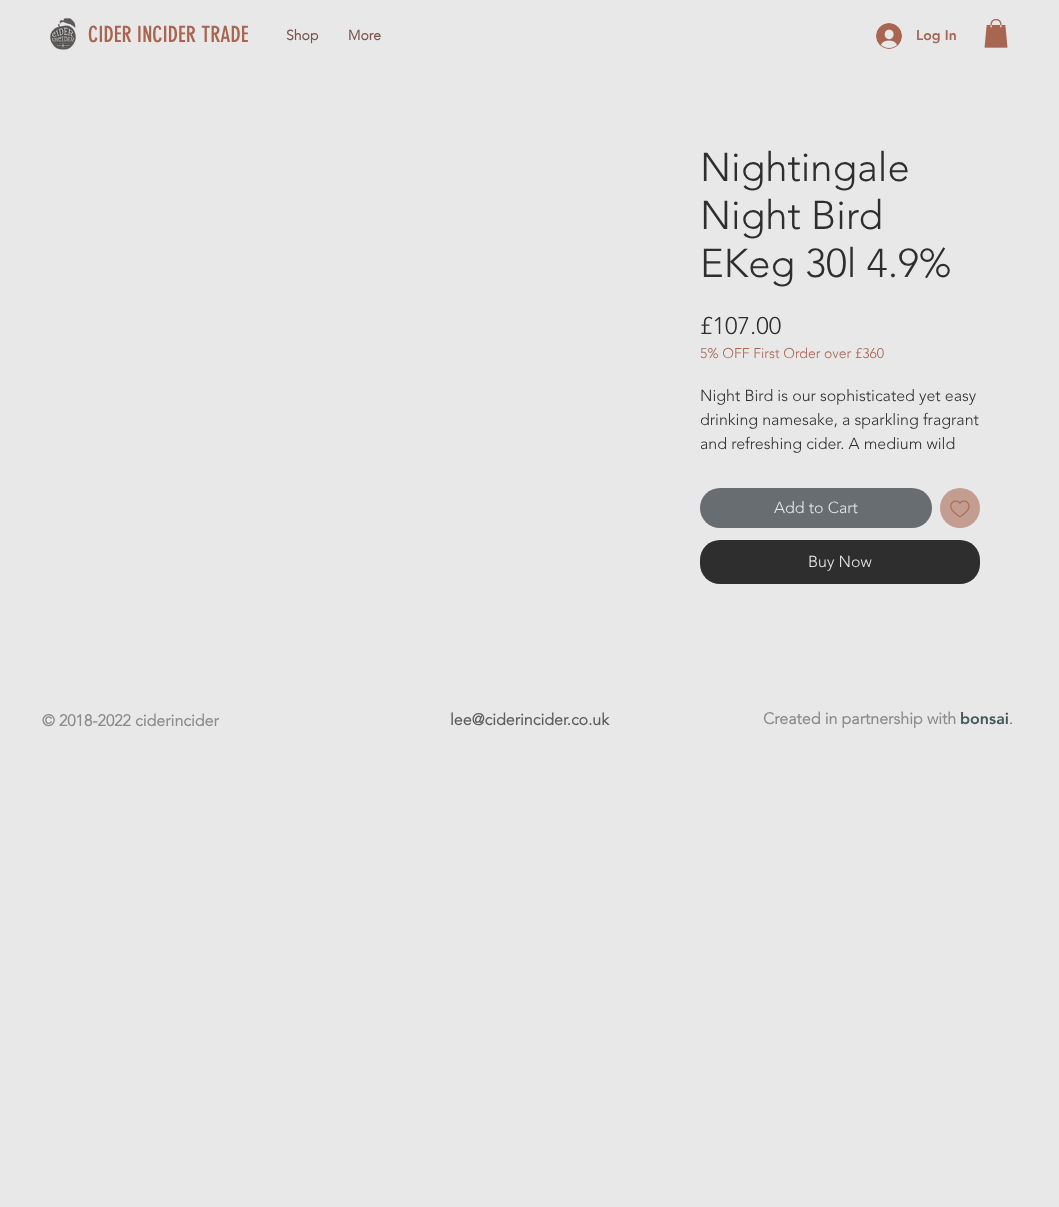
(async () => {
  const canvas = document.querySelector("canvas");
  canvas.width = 1059;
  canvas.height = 1207;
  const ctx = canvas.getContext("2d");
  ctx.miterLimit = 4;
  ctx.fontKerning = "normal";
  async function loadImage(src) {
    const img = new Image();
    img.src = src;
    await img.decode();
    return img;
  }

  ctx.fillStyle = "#e8e8e8";
  ctx.fillRect(0, 0, 1059, 1207);
  ctx.drawImage(await loadImage("img/1.png"), 50, 18, 26, 32);
  ctx.drawImage(await loadImage("img/2.png"), 876, 23, 26, 26);
  ctx.drawImage(await loadImage("img/3.png"), 984, 19, 24, 29);
  ctx.fillStyle = "#686d72";
  ctx.beginPath();
  ctx.roundRect(700, 488, 232, 40, 20);
  ctx.fill();
  ctx.fillStyle = "#c49d91";
  ctx.beginPath();
  ctx.arc(960, 508, 20, 0, Math.PI * 2);
  ctx.fill();
  ctx.drawImage(await loadImage("img/4.png"), 950, 500, 20, 17);
  ctx.fillStyle = "#2e2e2e";
  ctx.beginPath();
  ctx.roundRect(700, 540, 280, 44, 20);
  ctx.fill();
  ctx.font = "22px 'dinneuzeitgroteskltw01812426'";
  ctx.fillStyle = "#a86550";
  ctx.fillText("CIDER INCIDER TRADE", 88, 42);
  ctx.font = "bold 14px 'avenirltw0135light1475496'";
  ctx.fillStyle = "#7b5549";
  ctx.fillText("Shop", 286, 40);
  ctx.fillText("More", 348, 40);
  ctx.font = "900 14px 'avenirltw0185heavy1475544'";
  ctx.fillStyle = "#a86550";
  ctx.fillText("Log In", 916, 40);
  ctx.font = "300 40px 'avenirltw0135light1475496'";
  ctx.fillStyle = "#2e2e2e";
  for (const [text, x, y] of [
    ["Nightingale", 700, 181],
    ["Night Bird", 700, 229],
    ["EKeg 30l 4.9%", 700, 277],
  ]) {
    ctx.fillText(text, x, y);
  }
  ctx.font = "300 24px 'avenirltw0135light1475496'";
  ctx.fillText("£107.00", 700, 334);
  ctx.font = "300 14px 'avenirltw0135light1475496'";
  ctx.fillStyle = "#a86550";
  ctx.fillText("5% OFF First Order over £360", 700, 358);
  ctx.font = "300 16px 'avenirltw0135light1475496'";
  ctx.fillStyle = "#2e2e2e";
  for (const [text, x, y] of [
    ["Night Bird is our sophisticated yet easy", 700, 401],
    ["drinking namesake, a sparkling fragrant", 700, 425],
    ["and refreshing cider. A medium wild", 700, 449],
  ]) {
    ctx.fillText(text, x, y);
  }
  ctx.fillStyle = "#e8e8e8";
  ctx.fillText("Add to Cart", 774, 513);
  ctx.fillText("Buy Now", 808, 567);
  ctx.font = "bold 16px 'avenirltw0135light1475496'";
  ctx.fillStyle = "#8b8b8b";
  ctx.fillText("© 2018-2022 ciderincider", 42, 726);
  ctx.fillStyle = "#5d5d5d";
  ctx.fillText("lee@ciderincider.co.uk", 450, 725);
  ctx.fillStyle = "#8b8b8b";
  ctx.fillText("Created in partnership with", 763, 724);
  ctx.font = "900 16px 'avenirltw0185heavy1475544'";
  ctx.fillStyle = "#455758";
  ctx.fillText("bonsai", 960, 724);
  ctx.font = "300 16px 'avenirltw0135light1475496'";
  ctx.fillText(".", 1009, 724);
})();
